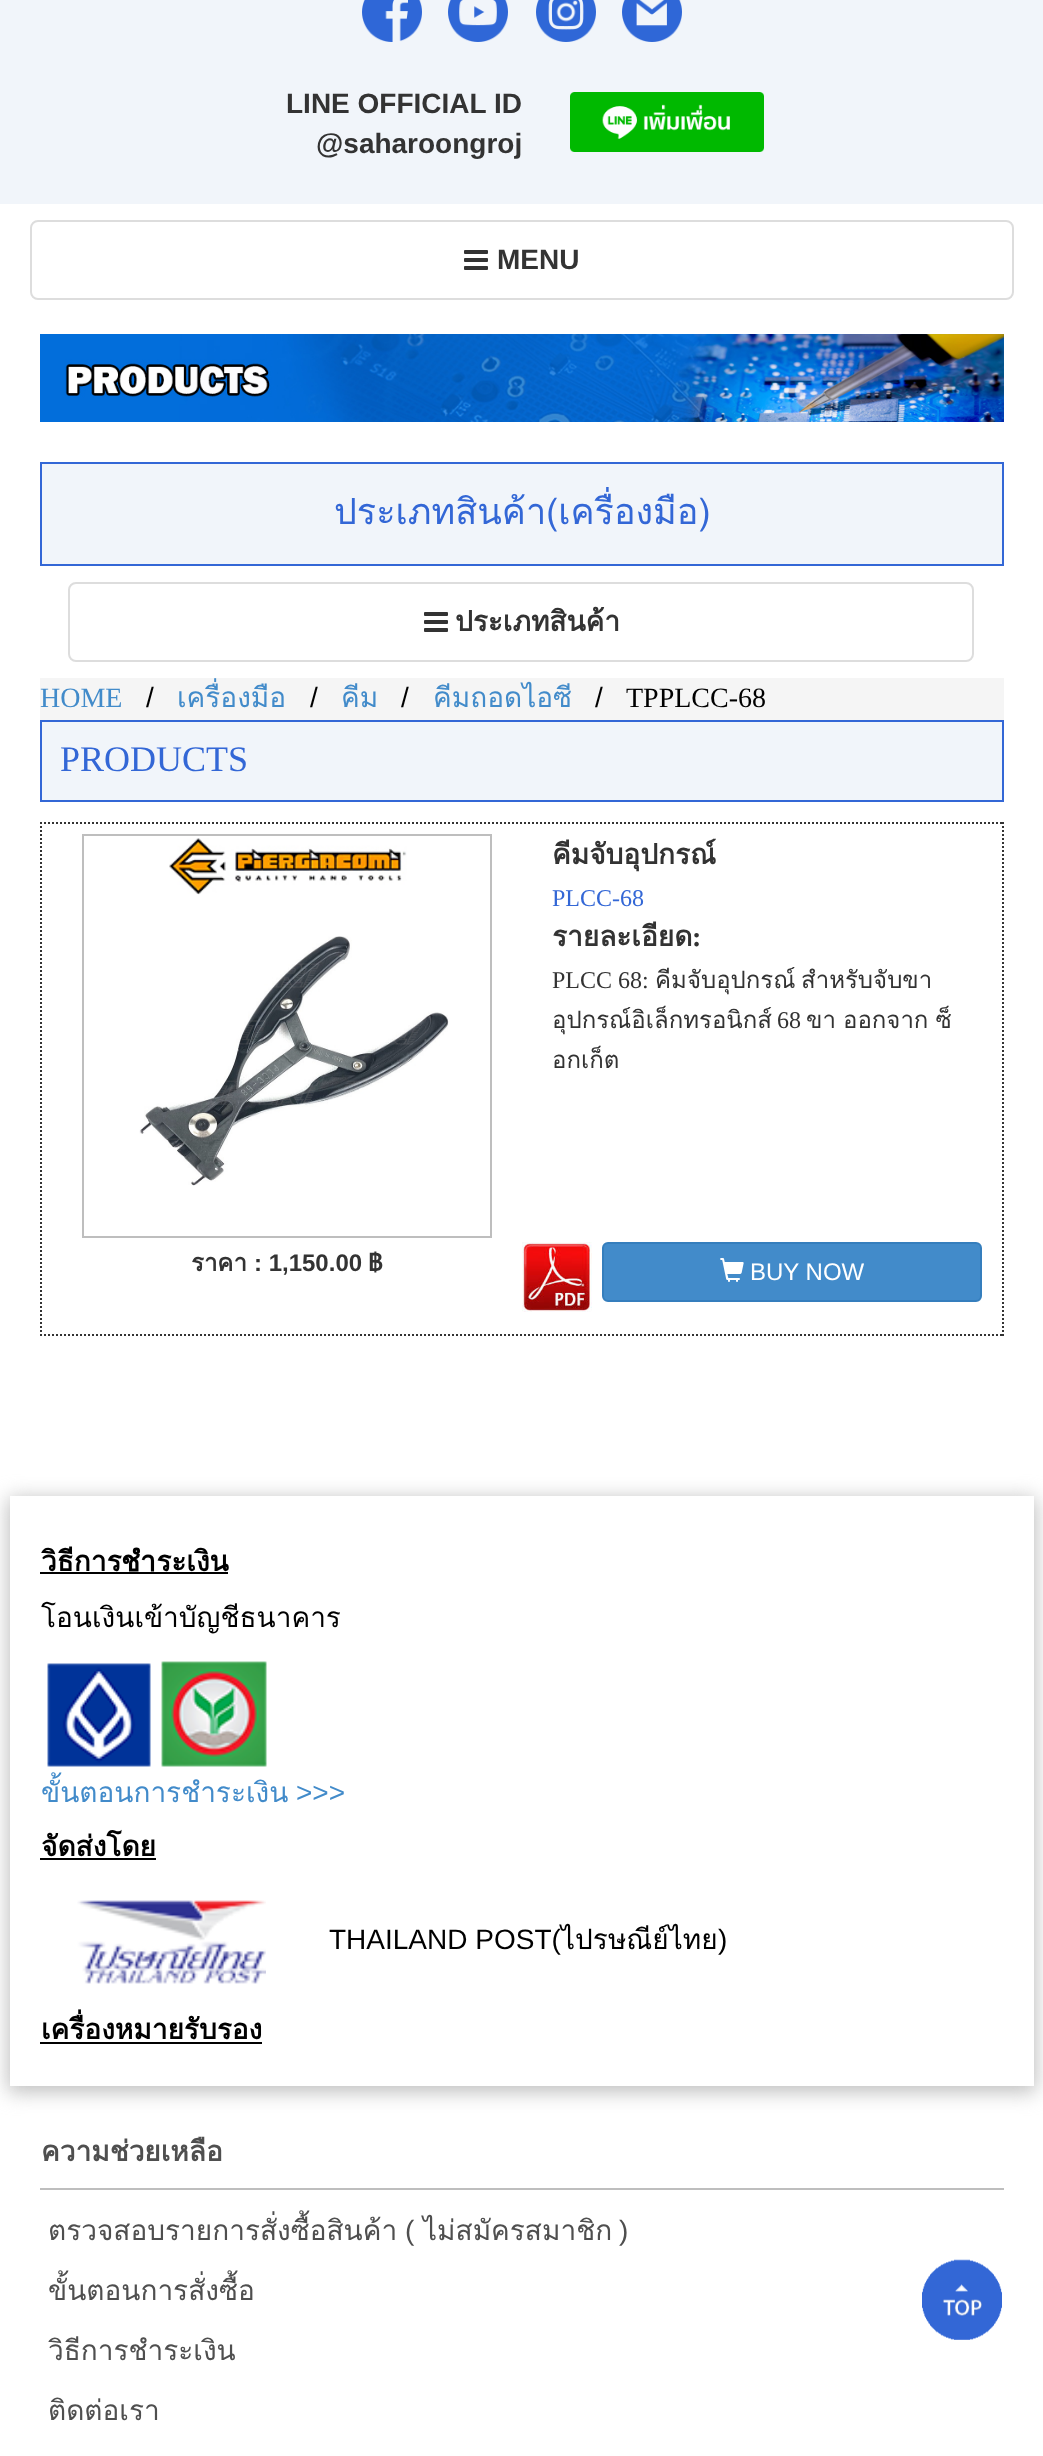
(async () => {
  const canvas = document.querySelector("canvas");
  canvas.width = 1043;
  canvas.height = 2456;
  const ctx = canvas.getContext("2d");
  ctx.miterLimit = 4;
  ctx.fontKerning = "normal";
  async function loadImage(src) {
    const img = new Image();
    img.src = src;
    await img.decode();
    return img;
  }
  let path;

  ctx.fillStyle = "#ffffff";
  ctx.fillRect(0, 0, 1043, 2456);
  ctx.fillStyle = "#f1f5fa";
  ctx.fillRect(0, 0, 1043, 204);
  ctx.drawImage(await loadImage("img/1.png"), 362, 0, 60, 42);
  ctx.drawImage(await loadImage("img/2.png"), 448, 0, 60, 42);
  ctx.drawImage(await loadImage("img/3.png"), 536, 0, 60, 42);
  ctx.drawImage(await loadImage("img/4.png"), 622, 0, 60, 42);
  ctx.drawImage(await loadImage("img/5.png"), 570, 92, 194, 60);
  ctx.beginPath();
  ctx.roundRect(31, 221, 982, 78, 7);
  ctx.strokeStyle = "#dddddd";
  ctx.lineWidth = 2;
  ctx.stroke();
  ctx.drawImage(await loadImage("img/6.png"), 464, 250, 24, 20);
  ctx.drawImage(await loadImage("img/7.png"), 40, 334, 964, 88);
  ctx.beginPath();
  ctx.rect(41, 463, 962, 102);
  ctx.fill();
  ctx.strokeStyle = "#3367d6";
  ctx.stroke();
  ctx.beginPath();
  ctx.roundRect(69, 583, 904, 78, 7);
  ctx.strokeStyle = "#dddddd";
  ctx.stroke();
  ctx.drawImage(await loadImage("img/6.png"), 424, 612, 24, 20);
  ctx.fillStyle = "#f5f5f5";
  ctx.fillRect(40, 678, 964, 42);
  ctx.fillStyle = "#f1f5fa";
  ctx.beginPath();
  ctx.rect(41, 721, 962, 80);
  ctx.fill();
  ctx.strokeStyle = "#3367d6";
  ctx.stroke();
  path = new Path2D("M40 823H1004");
  ctx.strokeStyle = "#333333";
  ctx.setLineDash([2, 2]);
  ctx.stroke(path);
  path = new Path2D("M1003 822V1336");
  ctx.stroke(path);
  path = new Path2D("M40 1335H1004");
  ctx.stroke(path);
  path = new Path2D("M41 822V1336");
  ctx.stroke(path);
  ctx.strokeStyle = "#bebebe";
  ctx.setLineDash([]);
  ctx.strokeRect(83, 835, 408, 402);
  ctx.drawImage(await loadImage("img/8.png"), 169, 838, 238, 57);
  ctx.drawImage(await loadImage("img/9.png"), 139, 936, 310, 250);
  ctx.drawImage(await loadImage("img/10.png"), 522, 1242, 70, 70);
  ctx.fillStyle = "#428bca";
  ctx.beginPath();
  ctx.roundRect(603, 1243, 378, 58, 5);
  ctx.fill();
  ctx.strokeStyle = "#357ebd";
  ctx.stroke();
  ctx.drawImage(await loadImage("img/11.png"), 720, 1258, 24, 24);
  ctx.save();
  path = new Path2D("M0 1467H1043V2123H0ZM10 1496H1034V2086H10Z");
  ctx.clip(path, "evenodd");
  ctx.fillStyle = "#bebebe";
  ctx.filter = "blur(10px)";
  ctx.beginPath();
  ctx.rect(8, 1498, 1028, 594);
  ctx.fill();
  ctx.filter = "none";
  ctx.restore();
  ctx.fillStyle = "#000000";
  ctx.fillRect(40, 1572, 188, 2);
  ctx.drawImage(await loadImage("img/12.png"), 47, 1663, 104, 104);
  ctx.drawImage(await loadImage("img/13.png"), 161, 1661, 106, 106);
  ctx.fillRect(40, 1858, 116, 2);
  ctx.drawImage(await loadImage("img/14.png"), 77, 1900, 189, 84);
  ctx.fillRect(40, 2042, 222, 2);
  ctx.fillStyle = "#bebebe";
  ctx.fillRect(40, 2188, 964, 2);
  ctx.drawImage(await loadImage("img/15.png"), 922, 2259, 80, 81);
  ctx.font = "bold 28px Liberation Sans";
  ctx.fillStyle = "#333333";
  for (const [text, x, y] of [
    ["LINE OFFICIAL ID", 286, 113],
    ["@saharoongroj", 316, 153],
    ["MENU", 497, 269],
  ]) {
    ctx.fillText(text, x, y);
  }
  ctx.font = "36px Loma";
  ctx.fillStyle = "#3367d6";
  ctx.fillText("ประเภทสินค้า(เครื่องมือ)", 334, 524);
  ctx.font = "bold 28px Loma";
  ctx.fillStyle = "#333333";
  ctx.fillText("ประเภทสินค้า", 455, 631);
  ctx.font = "28px Liberation Serif";
  ctx.fillStyle = "#428bca";
  ctx.fillText("HOME", 40, 707);
  ctx.font = "28px Liberation Sans";
  ctx.fillStyle = "#000000";
  ctx.fillText("/", 146, 707);
  ctx.font = "28px Loma";
  ctx.fillStyle = "#428bca";
  ctx.fillText("เครื่องมือ", 177, 707);
  ctx.font = "28px Liberation Sans";
  ctx.fillStyle = "#000000";
  ctx.fillText("/", 310, 707);
  ctx.font = "28px Loma";
  ctx.fillStyle = "#428bca";
  ctx.fillText("คีม", 341, 707);
  ctx.font = "28px Liberation Sans";
  ctx.fillStyle = "#000000";
  ctx.fillText("/", 401, 707);
  ctx.font = "28px Loma";
  ctx.fillStyle = "#428bca";
  ctx.fillText("คีมถอดไอซี", 433, 707);
  ctx.font = "28px Liberation Sans";
  ctx.fillStyle = "#000000";
  ctx.fillText("/", 595, 707);
  ctx.font = "28px Liberation Serif";
  ctx.fillText("TPPLCC-68", 626, 707);
  ctx.font = "36px Liberation Serif";
  ctx.fillStyle = "#3367d6";
  ctx.fillText("PRODUCTS", 60, 771);
  ctx.font = "bold 28px Loma";
  ctx.fillStyle = "#333333";
  ctx.fillText("คีมจับอุปกรณ์", 552, 864);
  ctx.font = "24px Liberation Serif";
  ctx.fillStyle = "#3367d6";
  ctx.fillText("PLCC-68", 552, 906);
  ctx.font = "bold 28px Loma";
  ctx.fillStyle = "#333333";
  ctx.fillText("รายละเอียด", 552, 946);
  ctx.font = "bold 28px Liberation Serif";
  ctx.fillText(":", 692, 946);
  ctx.font = "24px Liberation Serif";
  ctx.fillText("PLCC 68:", 552, 988);
  ctx.font = "24px Loma";
  ctx.fillText("คีมจับอุปกรณ์", 655, 988);
  ctx.fillText("สำหรับจับขา", 801, 988);
  ctx.save();
  ctx.beginPath();
  ctx.rect(552, 916, 410, 240);
  ctx.clip();
  ctx.fillText("อุปกรณ์อิเล็กทรอนิกส์", 552, 1028);
  ctx.restore();
  ctx.font = "24px Liberation Serif";
  ctx.fillText("68", 777, 1028);
  ctx.wordSpacing = "-1px";
  ctx.font = "24px Loma";
  ctx.fillText("ขา ออกจาก ซ็", 806, 1028);
  ctx.wordSpacing = "0px";
  ctx.fillText("อกเก็ต", 552, 1068);
  ctx.font = "bold 24px Loma";
  ctx.fillText("ราคา", 191, 1271);
  ctx.font = "bold 24px Liberation Sans";
  ctx.fillText(": 1,150.00", 254, 1271);
  ctx.font = "bold 24px Loma";
  ctx.fillText("฿", 368, 1271);
  ctx.font = "24px Liberation Sans";
  ctx.fillStyle = "#ffffff";
  ctx.fillText("BUY NOW", 750, 1280);
  ctx.font = "bold 28px Loma";
  ctx.fillStyle = "#000000";
  ctx.fillText("วิธีการชำระเงิน", 41, 1571);
  ctx.font = "28px Loma";
  ctx.fillText("โอนเงินเข้าบัญชีธนาคาร", 41, 1627);
  ctx.fillStyle = "#428bca";
  ctx.fillText("ขั้นตอนการชำระเงิน", 41, 1802);
  ctx.font = "28px Liberation Sans";
  ctx.fillText(">>>", 296, 1802);
  ctx.font = "bold 28px Loma";
  ctx.fillStyle = "#000000";
  ctx.fillText("จัดส่งโดย", 41, 1856);
  ctx.font = "28px Liberation Sans";
  ctx.fillText("THAILAND POST(", 329, 1949);
  ctx.font = "28px Loma";
  ctx.fillText("ไปรษณีย์ไทย", 561, 1949);
  ctx.font = "28px Liberation Sans";
  ctx.fillText(")", 718, 1949);
  ctx.font = "bold 28px Loma";
  ctx.fillText("เครื่องหมายรับรอง", 41, 2039);
  ctx.fillStyle = "#4f4f4f";
  ctx.fillText("ความช่วยเหลือ", 41, 2161);
  ctx.font = "28px Loma";
  ctx.fillText("ตรวจสอบรายการสั่งซื้อสินค้า", 48, 2240);
  ctx.font = "28px Liberation Sans";
  ctx.fillText("(", 405, 2240);
  ctx.font = "28px Loma";
  ctx.fillText("ไม่สมัครสมาชิก", 423, 2240);
  ctx.font = "28px Liberation Sans";
  ctx.fillText(")", 619, 2240);
  ctx.font = "28px Loma";
  for (const [text, x, y] of [
    ["ขั้นตอนการสั่งซื้อ", 48, 2300],
    ["วิธีการชำระเงิน", 48, 2360],
    ["ติดต่อเรา", 48, 2420],
  ]) {
    ctx.fillText(text, x, y);
  }
})();
